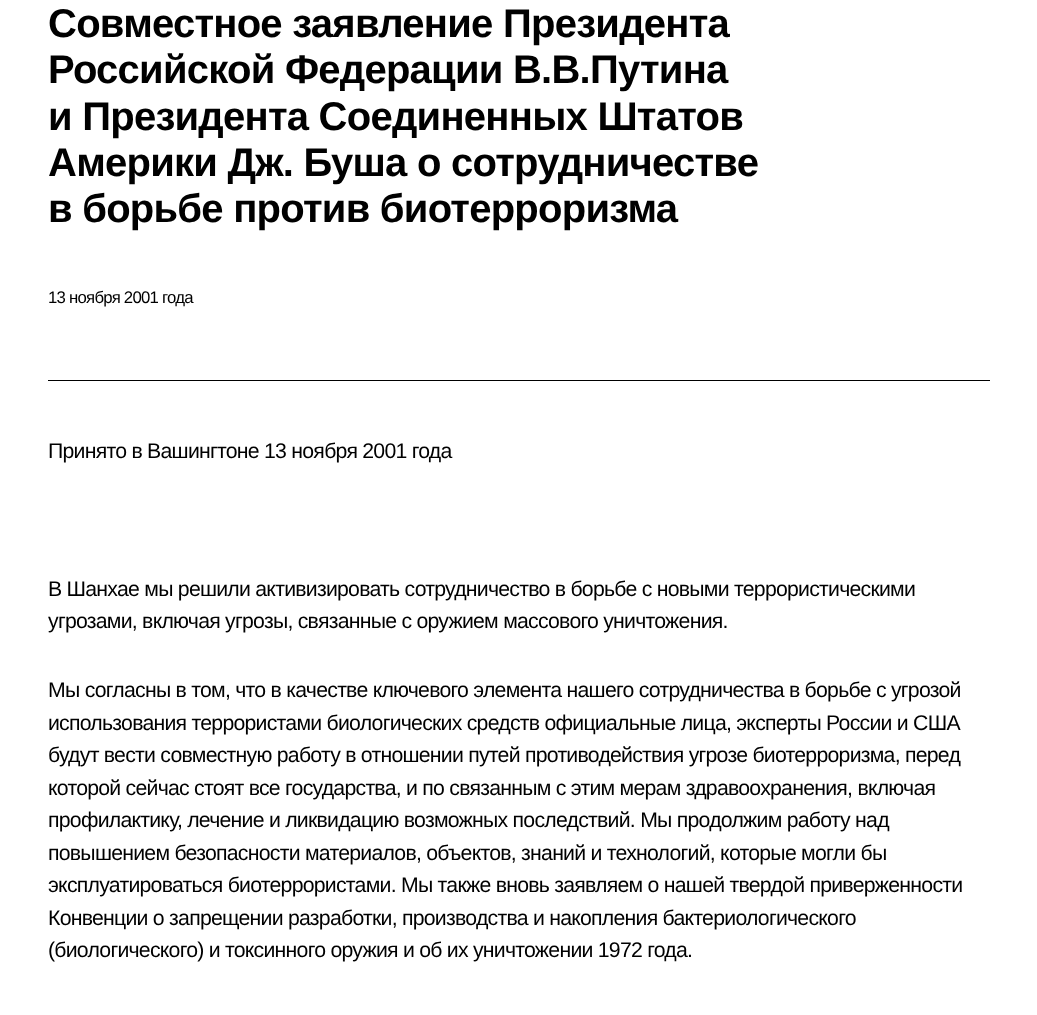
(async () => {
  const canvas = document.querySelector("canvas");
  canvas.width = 1037;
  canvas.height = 1015;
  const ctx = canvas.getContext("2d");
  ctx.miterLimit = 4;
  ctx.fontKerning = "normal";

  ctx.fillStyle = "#ffffff";
  ctx.fillRect(0, 0, 1037, 1015);
  ctx.fillStyle = "#000000";
  ctx.fillRect(48, 380, 942, 1);
  ctx.letterSpacing = "-0.75px";
  ctx.font = "bold 40px Liberation Sans";
  for (const [text, x, y] of [
    ["Совместное заявление Президента", 48, 37],
    ["Российской Федерации В.В.Путина", 48, 83],
    ["и Президента Соединенных Штатов", 48, 130],
    ["Америки Дж. Буша о сотрудничестве", 48, 176],
    ["в борьбе против биотерроризма", 48, 222],
  ]) {
    ctx.fillText(text, x, y);
  }
  ctx.font = "16.75px Liberation Sans";
  ctx.fillText("13 ноября 2001 года", 48, 303);
  ctx.font = "21.25px Liberation Sans";
  for (const [text, x, y] of [
    ["Принято в Вашингтоне 13 ноября 2001 года", 48, 458],
    ["В Шанхае мы решили активизировать сотрудничество в борьбе с новыми террористическими", 48, 596],
    ["угрозами, включая угрозы, связанные с оружием массового уничтожения.", 48, 628],
    ["Мы согласны в том, что в качестве ключевого элемента нашего сотрудничества в борьбе с угрозой", 48, 697],
    ["использования террористами биологических средств официальные лица, эксперты России и США", 48, 730],
    ["будут вести совместную работу в отношении путей противодействия угрозе биотерроризма, перед", 48, 762],
    ["которой сейчас стоят все государства, и по связанным с этим мерам здравоохранения, включая", 48, 795],
    ["профилактику, лечение и ликвидацию возможных последствий. Мы продолжим работу над", 48, 827],
    ["повышением безопасности материалов, объектов, знаний и технологий, которые могли бы", 48, 860],
    ["эксплуатироваться биотеррористами. Мы также вновь заявляем о нашей твердой приверженности", 48, 892],
    ["Конвенции о запрещении разработки, производства и накопления бактериологического", 48, 925],
    ["(биологического) и токсинного оружия и об их уничтожении 1972 года.", 48, 957],
  ]) {
    ctx.fillText(text, x, y);
  }
})();
